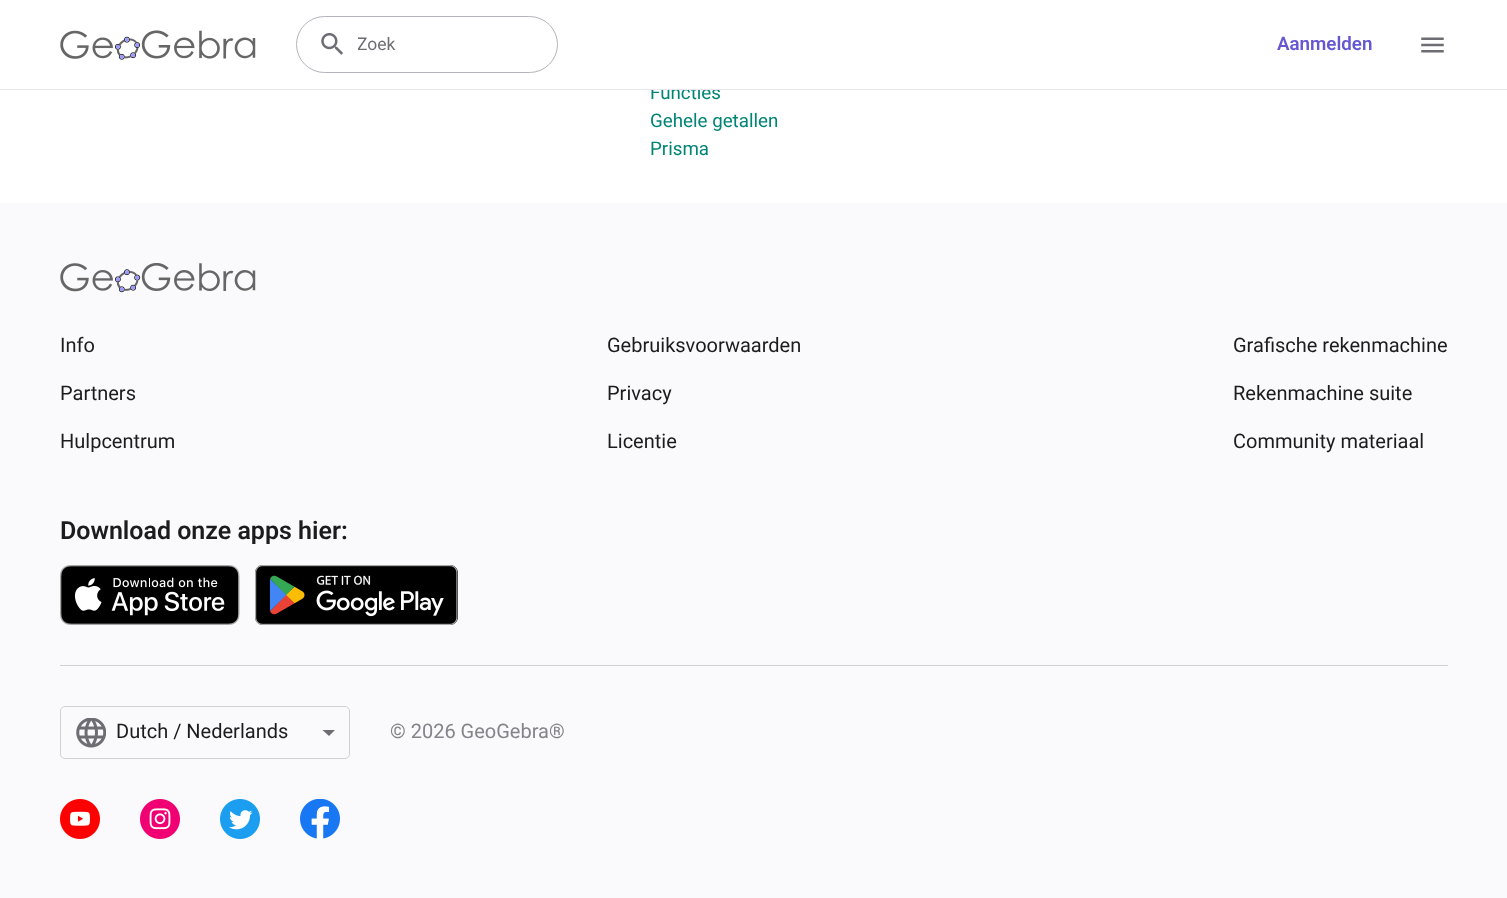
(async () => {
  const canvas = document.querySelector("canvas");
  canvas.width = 1507;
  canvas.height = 898;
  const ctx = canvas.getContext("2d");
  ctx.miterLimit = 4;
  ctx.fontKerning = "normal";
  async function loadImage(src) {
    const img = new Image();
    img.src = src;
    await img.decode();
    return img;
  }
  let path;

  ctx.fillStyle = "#ffffff";
  ctx.fillRect(0, 0, 1507, 898);
  ctx.drawImage(await loadImage("img/1.png"), 60, 30, 196, 30);
  ctx.beginPath();
  ctx.roundRect(296.5, 16.5, 261, 56, 28);
  ctx.strokeStyle = "#b4b3ba";
  ctx.stroke();
  ctx.drawImage(await loadImage("img/2.png"), 321, 33, 22, 22);
  ctx.drawImage(await loadImage("img/3.png"), 1421, 37, 23, 16);
  ctx.fillStyle = "#fafafc";
  ctx.fillRect(0, 203, 1507, 695);
  ctx.drawImage(await loadImage("img/4.png"), 60, 263, 196, 30);
  ctx.drawImage(await loadImage("img/5.png"), 60, 565, 180, 60);
  ctx.drawImage(await loadImage("img/6.png"), 255, 565, 203, 60);
  ctx.fillStyle = "#d1d0d6";
  ctx.fillRect(60, 665, 1388, 1);
  ctx.beginPath();
  ctx.roundRect(60.5, 706.5, 289, 52, 4.5);
  ctx.strokeStyle = "#d1d0d6";
  ctx.stroke();
  ctx.drawImage(await loadImage("img/7.png"), 76, 718, 30, 30);
  ctx.fillStyle = "#6e6d73";
  path = new Path2D("M322.5 730L329 736L335 730Z");
  ctx.fill(path);
  ctx.drawImage(await loadImage("img/8.png"), 60, 799, 40, 40);
  ctx.drawImage(await loadImage("img/9.png"), 140, 799, 40, 40);
  ctx.drawImage(await loadImage("img/10.png"), 220, 799, 40, 40);
  ctx.drawImage(await loadImage("img/11.png"), 300, 799, 40, 40);
  ctx.save();
  ctx.beginPath();
  ctx.rect(358, 18, 198, 53);
  ctx.clip();
  ctx.font = "17.5px Roboto";
  ctx.fillText("Zoek", 357, 50);
  ctx.restore();
  ctx.font = "600 18.75px Roboto";
  ctx.fillStyle = "#6557d2";
  ctx.fillText("Aanmelden", 1277, 50);
  ctx.font = "18.75px Roboto";
  ctx.fillStyle = "#008475";
  ctx.fillText("Functies", 650, 99);
  ctx.fillStyle = "#e6e6eb";
  ctx.fillRect(0, 89, 1507, 1);
  ctx.fillStyle = "#ffffff";
  ctx.fillRect(651, 85, 66, 4);
  ctx.fillStyle = "#008475";
  ctx.fillText("Gehele getallen", 650, 127);
  ctx.fillText("Prisma", 650, 155);
  ctx.font = "20px Roboto";
  ctx.fillStyle = "#1c1c1f";
  for (const [text, x, y] of [
    ["Info", 60, 352],
    ["Partners", 60, 400],
    ["Hulpcentrum", 60, 448],
    ["Gebruiksvoorwaarden", 607, 352],
    ["Privacy", 607, 400],
    ["Licentie", 607, 448],
    ["Grafische rekenmachine", 1233, 352],
    ["Rekenmachine suite", 1233, 400],
    ["Community materiaal", 1233, 448],
  ]) {
    ctx.fillText(text, x, y);
  }
  ctx.font = "600 25px Roboto";
  ctx.fillText("Download onze apps hier:", 60, 539);
  ctx.font = "20px Roboto";
  ctx.fillText("Dutch / Nederlands", 116, 738);
  ctx.fillStyle = "#85848a";
  ctx.fillText("© 2026 GeoGebra®", 390, 738);
})();
